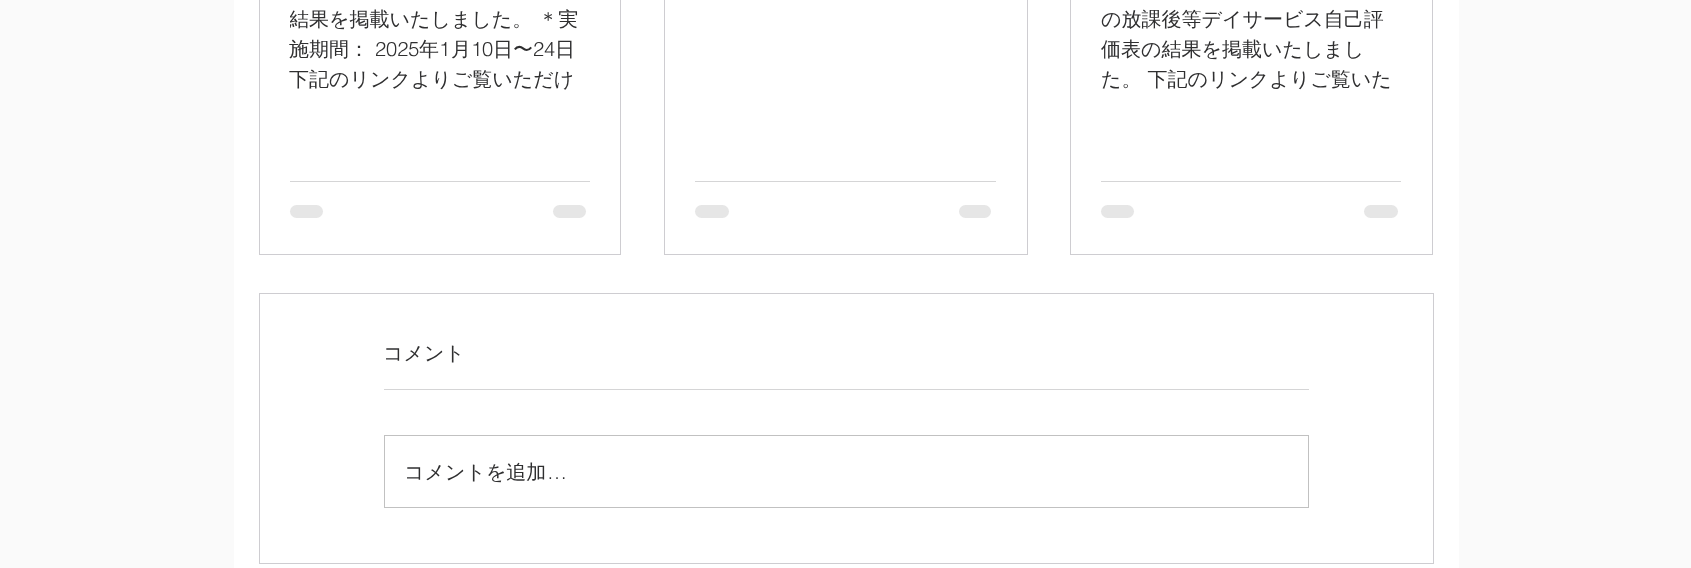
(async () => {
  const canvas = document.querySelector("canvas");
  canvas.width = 1691;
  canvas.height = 568;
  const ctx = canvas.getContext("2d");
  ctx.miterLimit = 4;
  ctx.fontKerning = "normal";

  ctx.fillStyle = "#fafafa";
  ctx.fillRect(0, 0, 1691, 568);
  ctx.fillStyle = "#ffffff";
  ctx.fillRect(234, 0, 1225, 568);
  ctx.strokeStyle = "#cecdd1";
  ctx.strokeRect(259.5, -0.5, 361, 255);
  ctx.fillStyle = "#d5d5d6";
  ctx.fillRect(290, 181, 300, 1);
  ctx.fillStyle = "#e6e6e6";
  ctx.beginPath();
  ctx.roundRect(290, 205, 33, 13, 6.5);
  ctx.fill();
  ctx.beginPath();
  ctx.roundRect(553, 205, 33, 13, 6.5);
  ctx.fill();
  ctx.strokeRect(664.5, -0.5, 363, 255);
  ctx.fillStyle = "#d5d5d6";
  ctx.fillRect(695, 181, 301, 1);
  ctx.fillStyle = "#e6e6e6";
  ctx.beginPath();
  ctx.roundRect(695, 205, 34, 13, 6.5);
  ctx.fill();
  ctx.beginPath();
  ctx.roundRect(959, 205, 32, 13, 6.5);
  ctx.fill();
  ctx.strokeRect(1070.5, -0.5, 362, 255);
  ctx.fillStyle = "#d5d5d6";
  ctx.fillRect(1101, 181, 300, 1);
  ctx.fillStyle = "#e6e6e6";
  ctx.beginPath();
  ctx.roundRect(1101, 205, 33, 13, 6.5);
  ctx.fill();
  ctx.beginPath();
  ctx.roundRect(1364, 205, 34, 13, 6.5);
  ctx.fill();
  ctx.strokeRect(259.5, 293.5, 1174, 270);
  ctx.fillStyle = "#d5d5d6";
  ctx.fillRect(384, 389, 925, 1);
  ctx.strokeStyle = "#c1c1c1";
  ctx.strokeRect(384.5, 435.5, 924, 72);
  ctx.save();
  ctx.beginPath();
  ctx.rect(290, 0, 300, 94);
  ctx.clip();
  ctx.font = "500 20px WenQuanYi Zen Hei";
  ctx.fillStyle = "#2f2f30";
  ctx.fillText("結果を掲載いたしました。 ＊実", 289, 26);
  ctx.restore();
  ctx.font = "500 20px WenQuanYi Zen Hei";
  ctx.fillStyle = "#2f2f30";
  ctx.fillText("施期間：", 289, 56);
  ctx.font = "300 20px helvetica";
  ctx.fillText("2025", 375, 56);
  ctx.font = "500 20px WenQuanYi Zen Hei";
  ctx.fillText("年", 419, 56);
  ctx.font = "300 20px helvetica";
  ctx.fillText("1", 439, 56);
  ctx.font = "500 20px WenQuanYi Zen Hei";
  ctx.fillText("月", 451, 56);
  ctx.font = "300 20px helvetica";
  ctx.fillText("10", 471, 56);
  ctx.font = "500 20px WenQuanYi Zen Hei";
  ctx.fillText("日〜", 493, 56);
  ctx.font = "300 20px helvetica";
  ctx.fillText("24", 533, 56);
  ctx.font = "500 20px WenQuanYi Zen Hei";
  for (const [text, x, y] of [
    ["日", 555, 56],
    ["下記のリンクよりご覧いただけ", 289, 86],
    ["の放課後等デイサービス自己評", 1101, 26],
    ["価表の結果を掲載いたしまし", 1101, 56],
    ["た。 下記のリンクよりご覧いた", 1101, 86],
    ["コメント", 383, 360],
    ["コメントを追加", 404, 479],
  ]) {
    ctx.fillText(text, x, y);
  }
  ctx.font = "300 20px helvetica";
  ctx.fillText("…", 547, 479);
})();
